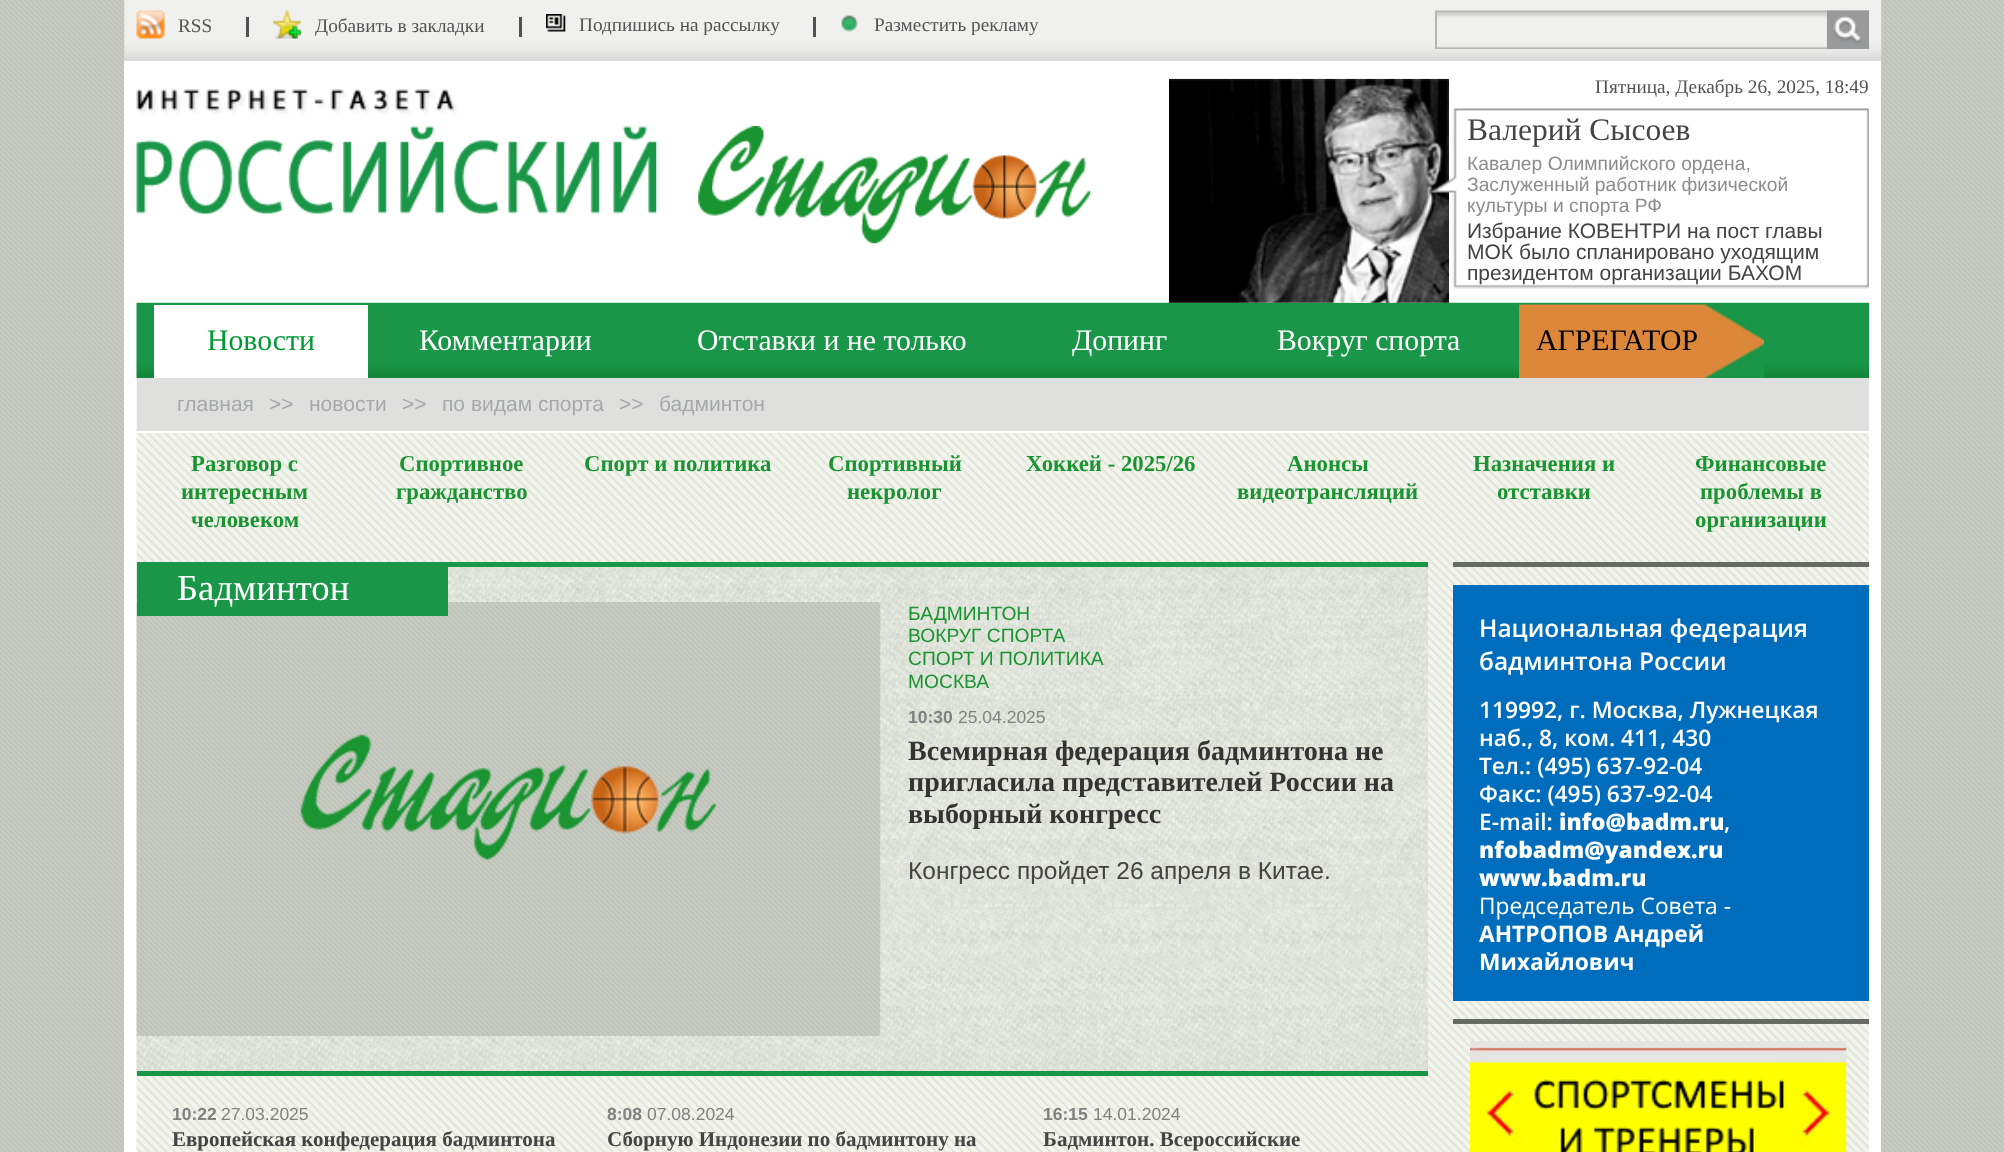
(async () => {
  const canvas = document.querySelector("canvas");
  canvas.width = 2004;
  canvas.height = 1152;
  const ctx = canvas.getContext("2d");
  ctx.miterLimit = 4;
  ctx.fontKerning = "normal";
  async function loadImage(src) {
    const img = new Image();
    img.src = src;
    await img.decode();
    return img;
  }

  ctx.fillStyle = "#ffffff";
  ctx.fillRect(0, 0, 2004, 1152);
  ctx.drawImage(await loadImage("img/1.png"), 0, 0, 2004, 1152);
  ctx.drawImage(await loadImage("img/2.png"), 124, 0, 1758, 62);
  ctx.drawImage(await loadImage("img/3.png"), 136, 10, 29, 29);
  ctx.fillStyle = "#525252";
  ctx.fillRect(246, 17, 3, 20);
  ctx.drawImage(await loadImage("img/4.png"), 273, 10, 28, 29);
  ctx.fillRect(519, 17, 3, 20);
  ctx.drawImage(await loadImage("img/5.png"), 546, 14, 20, 18);
  ctx.fillRect(813, 17, 3, 20);
  ctx.drawImage(await loadImage("img/6.png"), 841, 15, 17, 17);
  ctx.drawImage(await loadImage("img/7.png"), 1435, 10, 434, 39);
  ctx.fillStyle = "#b5b5b5";
  ctx.fillRect(1435, 11, 2, 38);
  ctx.drawImage(await loadImage("img/8.png"), 1827, 10, 42, 39);
  ctx.fillStyle = "#ffffff";
  ctx.fillRect(124, 61, 1757, 1091);
  ctx.drawImage(await loadImage("img/9.png"), 136, 89, 321, 25);
  ctx.drawImage(await loadImage("img/10.png"), 136, 126, 521, 88);
  ctx.drawImage(await loadImage("img/11.png"), 698, 126, 393, 118);
  ctx.drawImage(await loadImage("img/14.png"), 136, 302, 1733, 76);
  ctx.drawImage(await loadImage("img/12.png"), 1169, 78, 280, 225);
  ctx.drawImage(await loadImage("img/13.png"), 1430, 108, 439, 181);
  ctx.fillRect(154, 305, 214, 73);
  ctx.drawImage(await loadImage("img/15.png"), 1519, 304, 245, 74);
  ctx.drawImage(await loadImage("img/16.png"), 136, 378, 1733, 774);
  ctx.fillStyle = "#dfe0dd";
  ctx.fillRect(137, 378, 1732, 53);
  ctx.fillStyle = "#ffffff";
  ctx.fillRect(137, 431, 1732, 2);
  ctx.drawImage(await loadImage("img/17.png"), 136, 561, 1292, 516);
  ctx.fillStyle = "#199647";
  ctx.fillRect(137, 562, 1291, 5);
  ctx.fillRect(137, 1071, 1291, 5);
  ctx.drawImage(await loadImage("img/18.png"), 136, 602, 745, 434);
  for (const [x, y, w, h, color] of [
    [137, 567, 311, 49, "#199647"],
    [1453, 562, 416, 5, "#686a65"],
    [1453, 585, 416, 416, "#006dbc"],
    [1453, 1019, 416, 5, "#686a65"],
  ]) {
    ctx.fillStyle = color;
    ctx.fillRect(x, y, w, h);
  }
  ctx.drawImage(await loadImage("img/19.png"), 1470, 1041, 377, 111);
  ctx.font = "19.25px Liberation Serif";
  ctx.fillStyle = "#535353";
  for (const [text, x, y] of [
    ["RSS", 178, 32],
    ["Добавить в закладки", 315, 32],
    ["Подпишись на рассылку", 579, 31],
    ["Разместить рекламу", 874, 31],
    ["Пятница, Декабрь 26, 2025, 18:49", 1595, 93],
  ]) {
    ctx.fillText(text, x, y);
  }
  ctx.font = "31.5px Liberation Serif";
  ctx.fillStyle = "#444444";
  ctx.fillText("Валерий Сысоев", 1467, 140);
  ctx.font = "19.25px Liberation Sans";
  ctx.fillStyle = "#8c8c8c";
  for (const [text, x, y] of [
    ["Кавалер Олимпийского ордена,", 1467, 170],
    ["Заслуженный работник физической", 1467, 191],
    ["культуры и спорта РФ", 1467, 212],
  ]) {
    ctx.fillText(text, x, y);
  }
  ctx.font = "21px Liberation Sans";
  ctx.fillStyle = "#444444";
  for (const [text, x, y] of [
    ["Избрание КОВЕНТРИ на пост главы", 1467, 238],
    ["МОК было спланировано уходящим", 1467, 259],
    ["президентом организации БАХОМ", 1467, 280],
  ]) {
    ctx.fillText(text, x, y);
  }
  ctx.font = "29.75px Liberation Serif";
  ctx.fillStyle = "#009933";
  ctx.fillText("Новости", 207, 350);
  ctx.fillStyle = "#ffffff";
  for (const [text, x, y] of [
    ["Комментарии", 419, 350],
    ["Отставки и не только", 697, 350],
    ["Допинг", 1072, 350],
    ["Вокруг спорта", 1277, 350],
  ]) {
    ctx.fillText(text, x, y);
  }
  ctx.fillStyle = "#000000";
  ctx.fillText("АГРЕГАТОР", 1536, 350);
  ctx.font = "21px Liberation Sans";
  ctx.fillStyle = "#a6a9ac";
  for (const [text, x, y] of [
    ["главная", 177, 411],
    [">>", 269, 411],
    ["новости", 309, 411],
    [">>", 402, 411],
    ["по видам спорта", 442, 411],
    [">>", 619, 411],
    ["бадминтон", 659, 411],
  ]) {
    ctx.fillText(text, x, y);
  }
  ctx.font = "bold 22.75px Liberation Serif";
  ctx.fillStyle = "#1a9431";
  for (const [text, x, y] of [
    ["Разговор с", 191, 471],
    ["интересным", 181, 499],
    ["человеком", 191, 527],
    ["Спортивное", 399, 471],
    ["гражданство", 396, 499],
    ["Спорт и политика", 584, 471],
    ["Спортивный", 828, 471],
    ["некролог", 847, 499],
    ["Хоккей - 2025/26", 1026, 471],
    ["Анонсы", 1287, 471],
    ["видеотрансляций", 1237, 499],
    ["Назначения и", 1473, 471],
    ["отставки", 1497, 499],
    ["Финансовые", 1695, 471],
    ["проблемы в", 1700, 499],
    ["организации", 1695, 527],
  ]) {
    ctx.fillText(text, x, y);
  }
  ctx.font = "36.75px Liberation Serif";
  ctx.fillStyle = "#ffffff";
  ctx.fillText("Бадминтон", 177, 600);
  ctx.font = "19.25px Liberation Sans";
  ctx.fillStyle = "#1a9431";
  for (const [text, x, y] of [
    ["БАДМИНТОН", 908, 620],
    ["ВОКРУГ СПОРТА", 908, 642],
    ["СПОРТ И ПОЛИТИКА", 908, 665],
    ["МОСКВА", 908, 688],
  ]) {
    ctx.fillText(text, x, y);
  }
  ctx.font = "bold 17.5px Liberation Sans";
  ctx.fillStyle = "#808282";
  ctx.fillText("10:30", 908, 723);
  ctx.font = "17.5px Liberation Sans";
  ctx.fillText("25.04.2025", 958, 723);
  ctx.font = "bold 28px Liberation Serif";
  ctx.fillStyle = "#333333";
  for (const [text, x, y] of [
    ["Всемирная федерация бадминтона не", 908, 760],
    ["пригласила представителей России на", 908, 791],
    ["выборный конгресс", 908, 823],
  ]) {
    ctx.fillText(text, x, y);
  }
  ctx.font = "24.5px Liberation Sans";
  ctx.fillStyle = "#444444";
  ctx.fillText("Конгресс пройдет 26 апреля в Китае.", 908, 879);
  ctx.font = "bold 17.5px Liberation Sans";
  ctx.fillStyle = "#808282";
  ctx.fillText("10:22", 172, 1120);
  ctx.font = "17.5px Liberation Sans";
  ctx.fillText("27.03.2025", 221, 1120);
  ctx.font = "bold 21px Liberation Serif";
  ctx.fillStyle = "#444444";
  ctx.fillText("Европейская конфедерация бадминтона", 172, 1146);
  ctx.font = "bold 17.5px Liberation Sans";
  ctx.fillStyle = "#808282";
  ctx.fillText("8:08", 607, 1120);
  ctx.font = "17.5px Liberation Sans";
  ctx.fillText("07.08.2024", 647, 1120);
  ctx.font = "bold 21px Liberation Serif";
  ctx.fillStyle = "#444444";
  ctx.fillText("Сборную Индонезии по бадминтону на", 607, 1146);
  ctx.font = "bold 17.5px Liberation Sans";
  ctx.fillStyle = "#808282";
  ctx.fillText("16:15", 1043, 1120);
  ctx.font = "17.5px Liberation Sans";
  ctx.fillText("14.01.2024", 1093, 1120);
  ctx.font = "bold 21px Liberation Serif";
  ctx.fillStyle = "#444444";
  ctx.fillText("Бадминтон. Всероссийские", 1043, 1146);
  ctx.font = "600 24.5px Open Sans";
  ctx.fillStyle = "#ffffff";
  ctx.fillText("Национальная федерация", 1479, 637);
  ctx.fillText("бадминтона России", 1479, 670);
  ctx.font = "600 22.75px Open Sans";
  for (const [text, x, y] of [
    ["119992, г. Москва, Лужнецкая", 1479, 718],
    ["наб., 8, ком. 411, 430", 1479, 746],
    ["Тел.: (495) 637-92-04", 1479, 774],
    ["Факс: (495) 637-92-04", 1479, 802],
    ["E-mail:", 1479, 830],
  ]) {
    ctx.fillText(text, x, y);
  }
  ctx.font = "800 22.75px Open Sans";
  ctx.fillText("info@badm.ru", 1559, 830);
  ctx.font = "600 22.75px Open Sans";
  ctx.fillText(",", 1724, 830);
  ctx.font = "800 22.75px Open Sans";
  ctx.fillText("nfobadm@yandex.ru", 1479, 858);
  ctx.fillText("www.badm.ru", 1479, 886);
  ctx.font = "22.75px Open Sans";
  ctx.fillText("Председатель Совета -", 1479, 914);
  ctx.font = "bold 22.75px Open Sans";
  ctx.fillText("АНТРОПОВ Андрей", 1479, 942);
  ctx.fillText("Михайлович", 1479, 970);
})();
